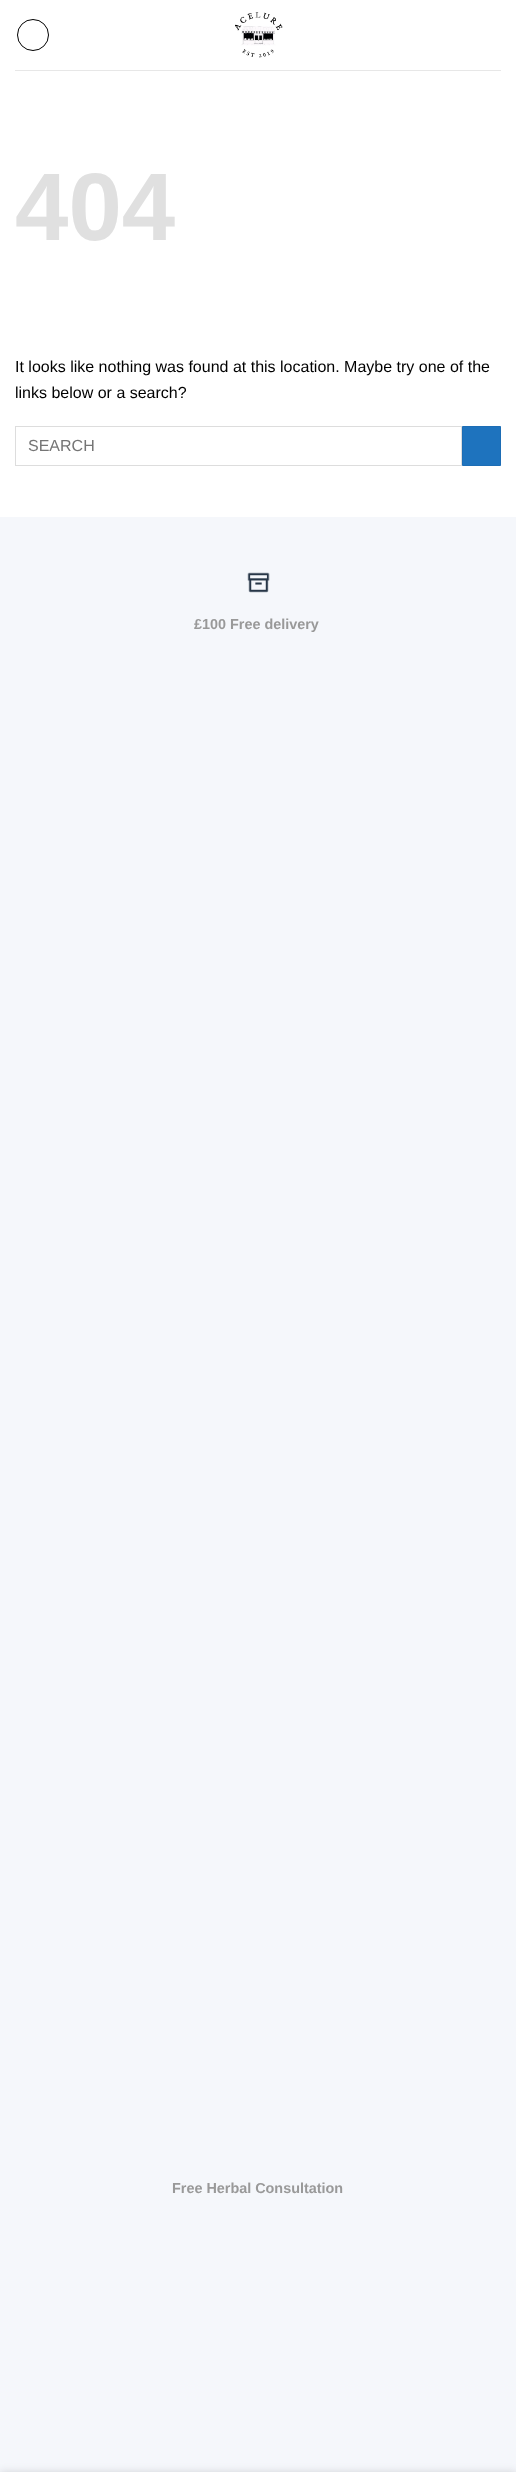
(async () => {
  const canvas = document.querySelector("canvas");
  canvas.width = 516;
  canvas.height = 2472;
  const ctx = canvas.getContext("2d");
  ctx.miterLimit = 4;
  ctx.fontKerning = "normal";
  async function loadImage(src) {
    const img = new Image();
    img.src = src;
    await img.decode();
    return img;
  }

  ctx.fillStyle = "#ffffff";
  ctx.fillRect(0, 0, 516, 2472);
  ctx.beginPath();
  ctx.arc(33, 35, 15.5, 0, Math.PI * 2);
  ctx.strokeStyle = "#000000";
  ctx.stroke();
  ctx.drawImage(await loadImage("img/1.png"), 235, 12, 48, 46);
  ctx.fillStyle = "#e7e7e7";
  ctx.fillRect(15, 70, 486, 1);
  ctx.strokeStyle = "#dddddd";
  ctx.strokeRect(15.5, 426.5, 446, 39);
  ctx.fillStyle = "#1e73be";
  ctx.beginPath();
  ctx.rect(462.5, 426.5, 38, 39);
  ctx.fill();
  ctx.strokeStyle = "#1d6db5";
  ctx.stroke();
  ctx.fillStyle = "#f5f7fb";
  ctx.fillRect(0, 517, 516, 1955);
  ctx.drawImage(await loadImage("img/2.png"), 247, 572, 23, 21);
  ctx.fillStyle = "rgba(0, 0, 0, 0.14)";
  ctx.filter = "blur(4.5px)";
  ctx.beginPath();
  ctx.rect(0, 2472, 516, 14);
  ctx.fill();
  ctx.filter = "none";
  ctx.font = "bold 96px Liberation Sans";
  ctx.fillStyle = "#e0e0e0";
  ctx.fillText("404", 15, 240);
  ctx.font = "16px Liberation Sans";
  ctx.fillStyle = "#000000";
  ctx.fillText("It looks like nothing was found at this location. Maybe try one of the", 15, 372);
  ctx.fillText("links below or a search?", 15, 398);
  ctx.fillStyle = "#757575";
  ctx.fillText("SEARCH", 28, 451);
  ctx.font = "bold 14.4px Liberation Sans";
  ctx.fillStyle = "#999999";
  ctx.fillText("£100 Free delivery", 194, 629);
  ctx.fillText("Free Herbal Consultation", 172, 2193);
})();
